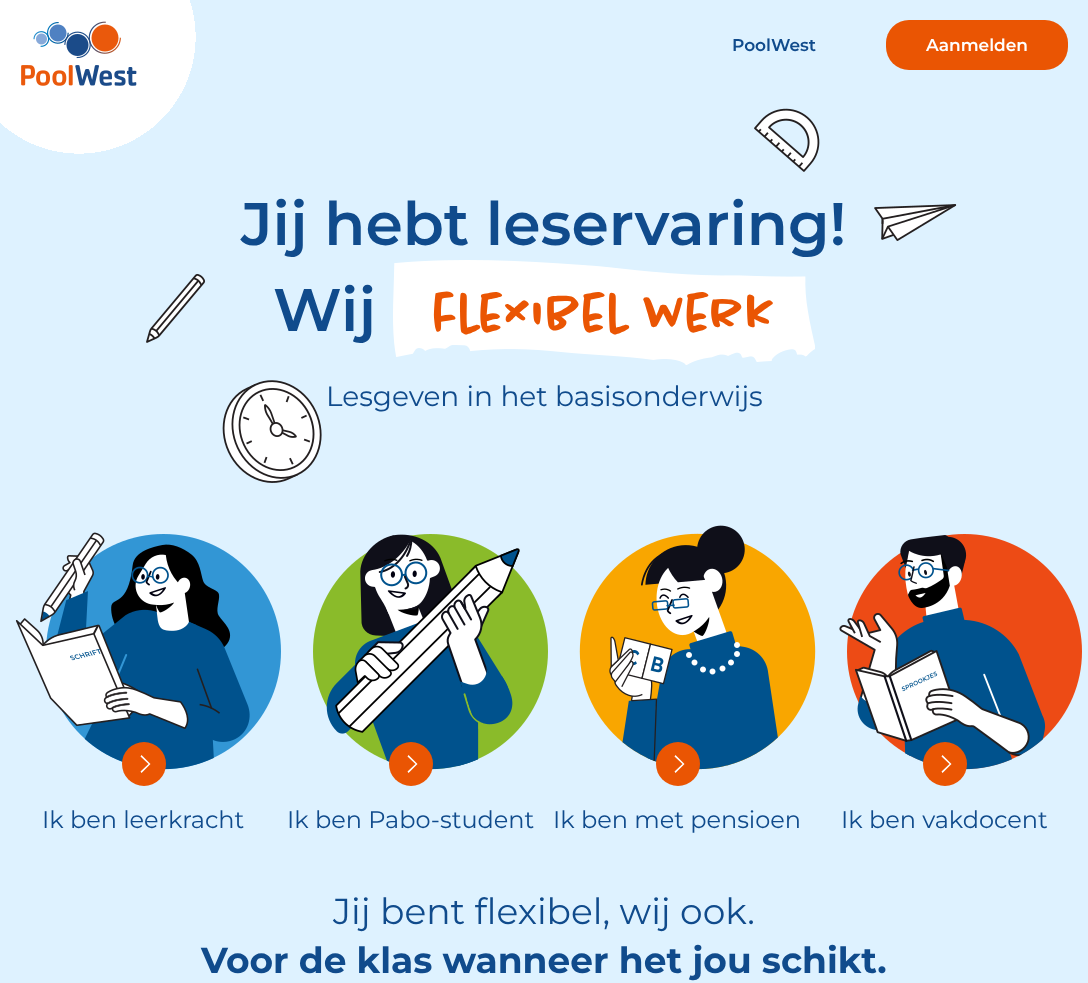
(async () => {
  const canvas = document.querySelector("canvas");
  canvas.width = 1088;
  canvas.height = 983;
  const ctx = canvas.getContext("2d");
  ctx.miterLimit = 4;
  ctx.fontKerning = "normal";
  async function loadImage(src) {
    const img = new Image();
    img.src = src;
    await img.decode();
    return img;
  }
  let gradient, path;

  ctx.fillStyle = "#def2ff";
  ctx.fillRect(0, 0, 1088, 983);
  gradient = ctx.createRadialGradient(79, 37, 0, 79, 37, 238);
  gradient.addColorStop(0.49, "#ffffff");
  gradient.addColorStop(0.49, "#def2ff");
  ctx.fillStyle = gradient;
  ctx.fillRect(0, 0, 196, 154);
  ctx.drawImage(await loadImage("img/1.png"), 21, 21, 116, 65);
  ctx.fillStyle = "#ea5503";
  ctx.beginPath();
  ctx.roundRect(886, 20, 182, 50, 23);
  ctx.fill();
  ctx.drawImage(await loadImage("img/2.png"), 146, 108, 811, 375);
  ctx.drawImage(await loadImage("img/3.png"), 393, 260, 422, 105);
  ctx.drawImage(await loadImage("img/4.png"), 15, 532, 266, 238);
  ctx.beginPath();
  ctx.arc(144, 764, 22, 0, Math.PI * 2);
  ctx.fill();
  ctx.fillStyle = "#ffffff";
  path = new Path2D("M141.5 755L140.5 756.5L148.5 764L140.5 771.5L141.5 773L150.5 764Z");
  ctx.fill(path);
  ctx.drawImage(await loadImage("img/5.png"), 313, 534, 235, 236);
  ctx.fillStyle = "#ea5503";
  ctx.beginPath();
  ctx.arc(411, 764, 22, 0, Math.PI * 2);
  ctx.fill();
  ctx.fillStyle = "#ffffff";
  path = new Path2D("M408.5 755L407.5 756.5L415.5 764L407.5 771.5L408.5 773L417.5 764Z");
  ctx.fill(path);
  ctx.drawImage(await loadImage("img/6.png"), 579, 525, 237, 245);
  ctx.fillStyle = "#ea5503";
  ctx.beginPath();
  ctx.arc(678, 764, 22, 0, Math.PI * 2);
  ctx.fill();
  ctx.fillStyle = "#ffffff";
  path = new Path2D("M675.5 755L674.5 756.5L682.5 764L674.5 771.5L675.5 773L684.5 764Z");
  ctx.fill(path);
  ctx.drawImage(await loadImage("img/7.png"), 839, 534, 243, 236);
  ctx.fillStyle = "#ea5503";
  ctx.beginPath();
  ctx.arc(945, 764, 22, 0, Math.PI * 2);
  ctx.fill();
  ctx.fillStyle = "#ffffff";
  path = new Path2D("M942.5 755L941.5 756.5L949.5 764L941.5 771.5L942.5 773L951.5 764Z");
  ctx.fill(path);
  ctx.font = "600 17px Montserrat";
  ctx.fillStyle = "#104b8c";
  ctx.fillText("PoolWest", 732, 51);
  ctx.fillStyle = "#ffffff";
  ctx.fillText("Aanmelden", 926, 51);
  ctx.font = "600 60px Montserrat";
  ctx.fillStyle = "#104b8c";
  ctx.fillText("Jij hebt leservaring!", 241, 245);
  ctx.fillText("Wij", 273, 331);
  ctx.font = "500 53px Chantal";
  ctx.fillStyle = "#ea5503";
  ctx.fillText("flexibel werk", 433, 331);
  ctx.font = "28px Montserrat";
  ctx.fillStyle = "#104b8c";
  ctx.fillText("Lesgeven in het basisonderwijs", 326, 406);
  ctx.font = "24px Montserrat";
  for (const [text, x, y] of [
    ["Ik ben leerkracht", 42, 828],
    ["Ik ben Pabo-student", 287, 828],
    ["Ik ben met pensioen", 553, 828],
    ["Ik ben vakdocent", 841, 828],
  ]) {
    ctx.fillText(text, x, y);
  }
  ctx.font = "36px Montserrat";
  ctx.fillText("Jij bent flexibel, wij ook.", 333, 924);
  ctx.font = "bold 36px Montserrat";
  ctx.fillText("Voor de klas wanneer het jou schikt.", 201, 973);
})();
